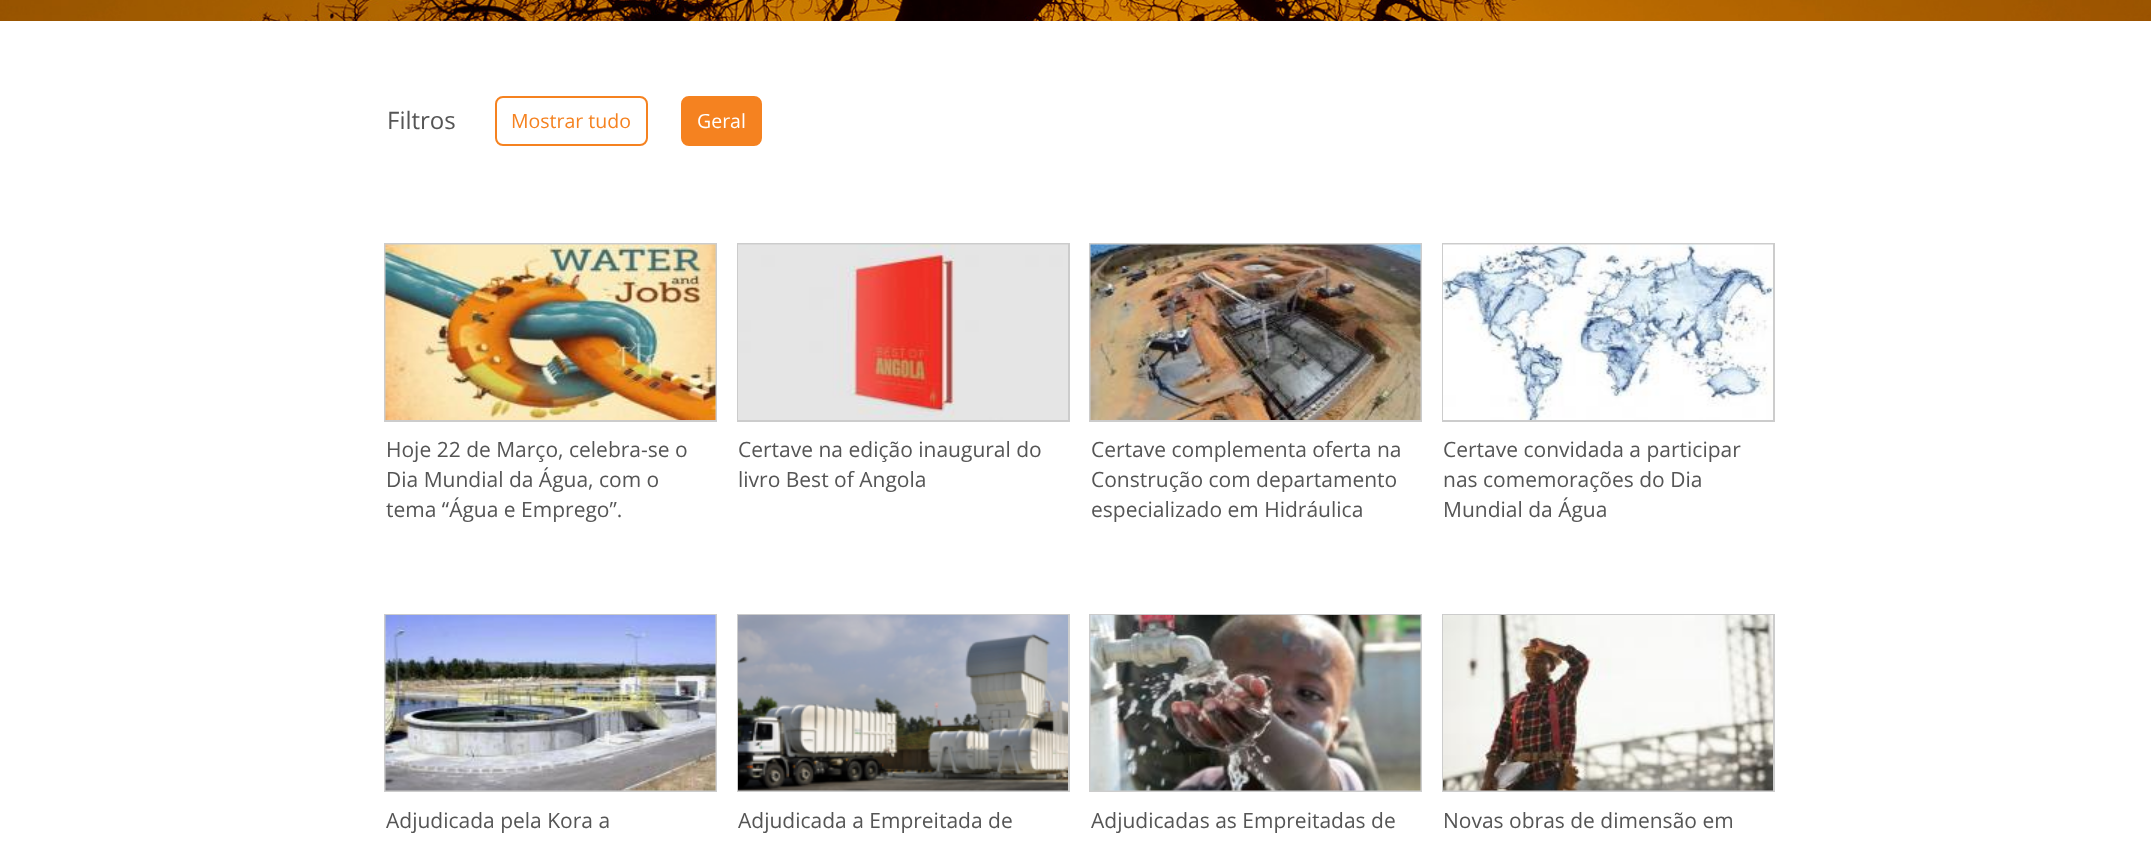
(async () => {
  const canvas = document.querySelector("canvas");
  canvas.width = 2151;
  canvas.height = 851;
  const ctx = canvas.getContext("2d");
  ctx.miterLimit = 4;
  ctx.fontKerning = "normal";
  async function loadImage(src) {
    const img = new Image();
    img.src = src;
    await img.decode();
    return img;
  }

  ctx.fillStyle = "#ffffff";
  ctx.fillRect(0, 0, 2151, 851);
  ctx.drawImage(await loadImage("img/1.png"), 0, 0, 2151, 21);
  ctx.beginPath();
  ctx.roundRect(496, 97, 151, 48, 7);
  ctx.strokeStyle = "#f58220";
  ctx.lineWidth = 2;
  ctx.stroke();
  ctx.fillStyle = "#f58220";
  ctx.beginPath();
  ctx.roundRect(682, 97, 79, 48, 7);
  ctx.fill();
  ctx.stroke();
  ctx.strokeStyle = "#cccccc";
  ctx.strokeRect(385, 244, 331, 177);
  ctx.drawImage(await loadImage("img/2.png"), 385, 244, 331, 176);
  ctx.strokeRect(738, 244, 331, 177);
  ctx.drawImage(await loadImage("img/3.png"), 738, 244, 330, 176);
  ctx.strokeRect(1090, 244, 331, 177);
  ctx.drawImage(await loadImage("img/4.png"), 1090, 244, 331, 176);
  ctx.strokeRect(1443, 244, 331, 177);
  ctx.drawImage(await loadImage("img/5.png"), 1443, 244, 330, 176);
  ctx.strokeRect(385, 615, 331, 176);
  ctx.drawImage(await loadImage("img/6.png"), 385, 615, 331, 176);
  ctx.strokeRect(738, 615, 331, 176);
  ctx.drawImage(await loadImage("img/7.png"), 738, 615, 330, 176);
  ctx.strokeRect(1090, 615, 331, 176);
  ctx.drawImage(await loadImage("img/8.png"), 1090, 615, 331, 176);
  ctx.strokeRect(1443, 615, 331, 176);
  ctx.drawImage(await loadImage("img/9.png"), 1443, 615, 330, 176);
  ctx.font = "24px Open Sans";
  ctx.fillStyle = "#555555";
  ctx.fillText("Filtros", 387, 129);
  ctx.font = "19.5px Open Sans";
  ctx.fillStyle = "#f58220";
  ctx.fillText("Mostrar tudo", 511, 128);
  ctx.fillStyle = "#ffffff";
  ctx.fillText("Geral", 697, 128);
  ctx.font = "21px Open Sans";
  ctx.fillStyle = "#555555";
  for (const [text, x, y] of [
    ["Hoje 22 de Março, celebra-se o", 386, 457],
    ["Dia Mundial da Água, com o", 386, 487],
    ["tema “Água e Emprego”.", 386, 517],
    ["Certave na edição inaugural do", 738, 457],
    ["livro Best of Angola", 738, 487],
    ["Certave complementa oferta na", 1091, 457],
    ["Construção com departamento", 1091, 487],
    ["especializado em Hidráulica", 1091, 517],
    ["Certave convidada a participar", 1443, 457],
    ["nas comemorações do Dia", 1443, 487],
    ["Mundial da Água", 1443, 517],
    ["Adjudicada pela Kora a", 386, 828],
    ["Adjudicada a Empreitada de", 738, 828],
    ["Adjudicadas as Empreitadas de", 1091, 828],
    ["Novas obras de dimensão em", 1443, 828],
  ]) {
    ctx.fillText(text, x, y);
  }
})();
